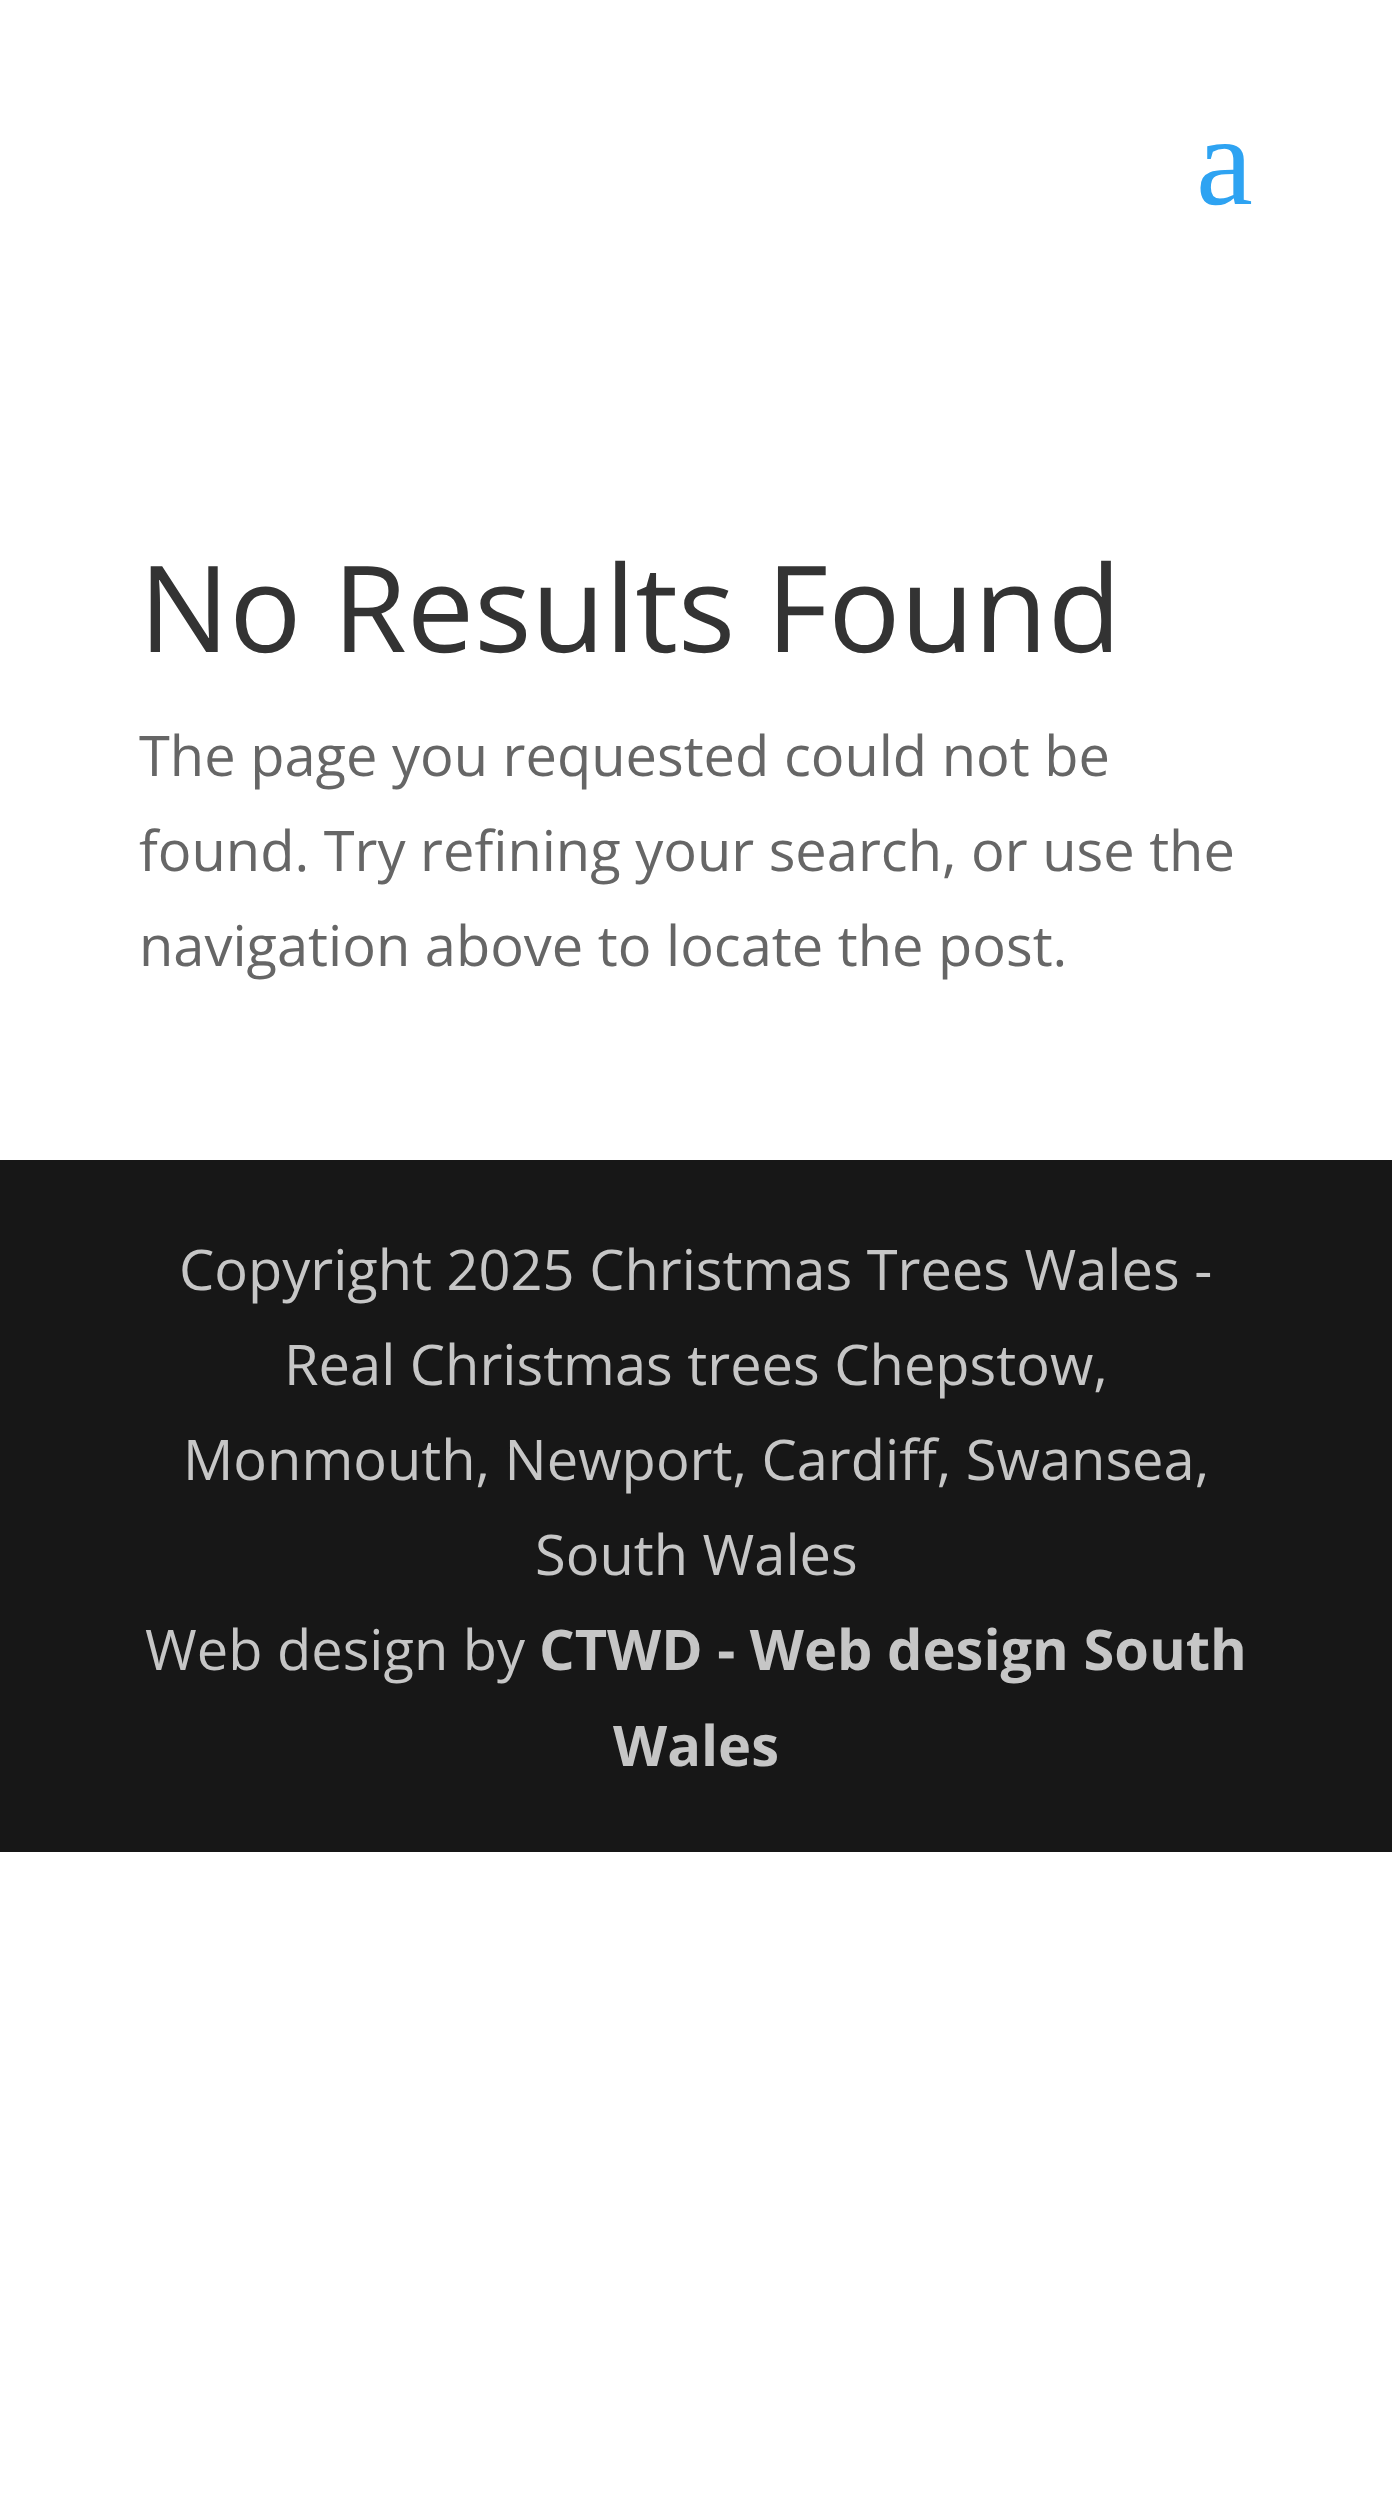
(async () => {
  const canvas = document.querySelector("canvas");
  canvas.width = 1392;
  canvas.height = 2518;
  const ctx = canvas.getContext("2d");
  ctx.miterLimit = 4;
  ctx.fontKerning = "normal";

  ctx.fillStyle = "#ffffff";
  ctx.fillRect(0, 0, 1392, 2518);
  ctx.fillStyle = "#171717";
  ctx.fillRect(0, 1160, 1392, 692);
  ctx.font = "128px Liberation Serif";
  ctx.fillStyle = "#2ea3f2";
  ctx.fillText("a", 1196, 204);
  ctx.font = "120px Open Sans";
  ctx.fillStyle = "#333333";
  ctx.fillText("No Results Found", 139, 652);
  ctx.font = "56px Open Sans";
  ctx.fillStyle = "#666666";
  for (const [text, x, y] of [
    ["The page you requested could not be", 139, 776],
    ["found. Try refining your search, or use the", 139, 871],
    ["navigation above to locate the post.", 139, 966],
  ]) {
    ctx.fillText(text, x, y);
  }
  ctx.fillStyle = "#c6c6c6";
  for (const [text, x, y] of [
    ["Copyright 2025 Christmas Trees Wales -", 179, 1290],
    ["Real Christmas trees Chepstow,", 284, 1385],
    ["Monmouth, Newport, Cardiff, Swansea,", 183, 1480],
    ["South Wales", 535, 1575],
    ["Web design by", 145, 1670],
  ]) {
    ctx.fillText(text, x, y);
  }
  ctx.font = "bold 56px Open Sans";
  ctx.fillText("CTWD - Web design South", 539, 1670);
  ctx.fillText("Wales", 613, 1766);
})();
